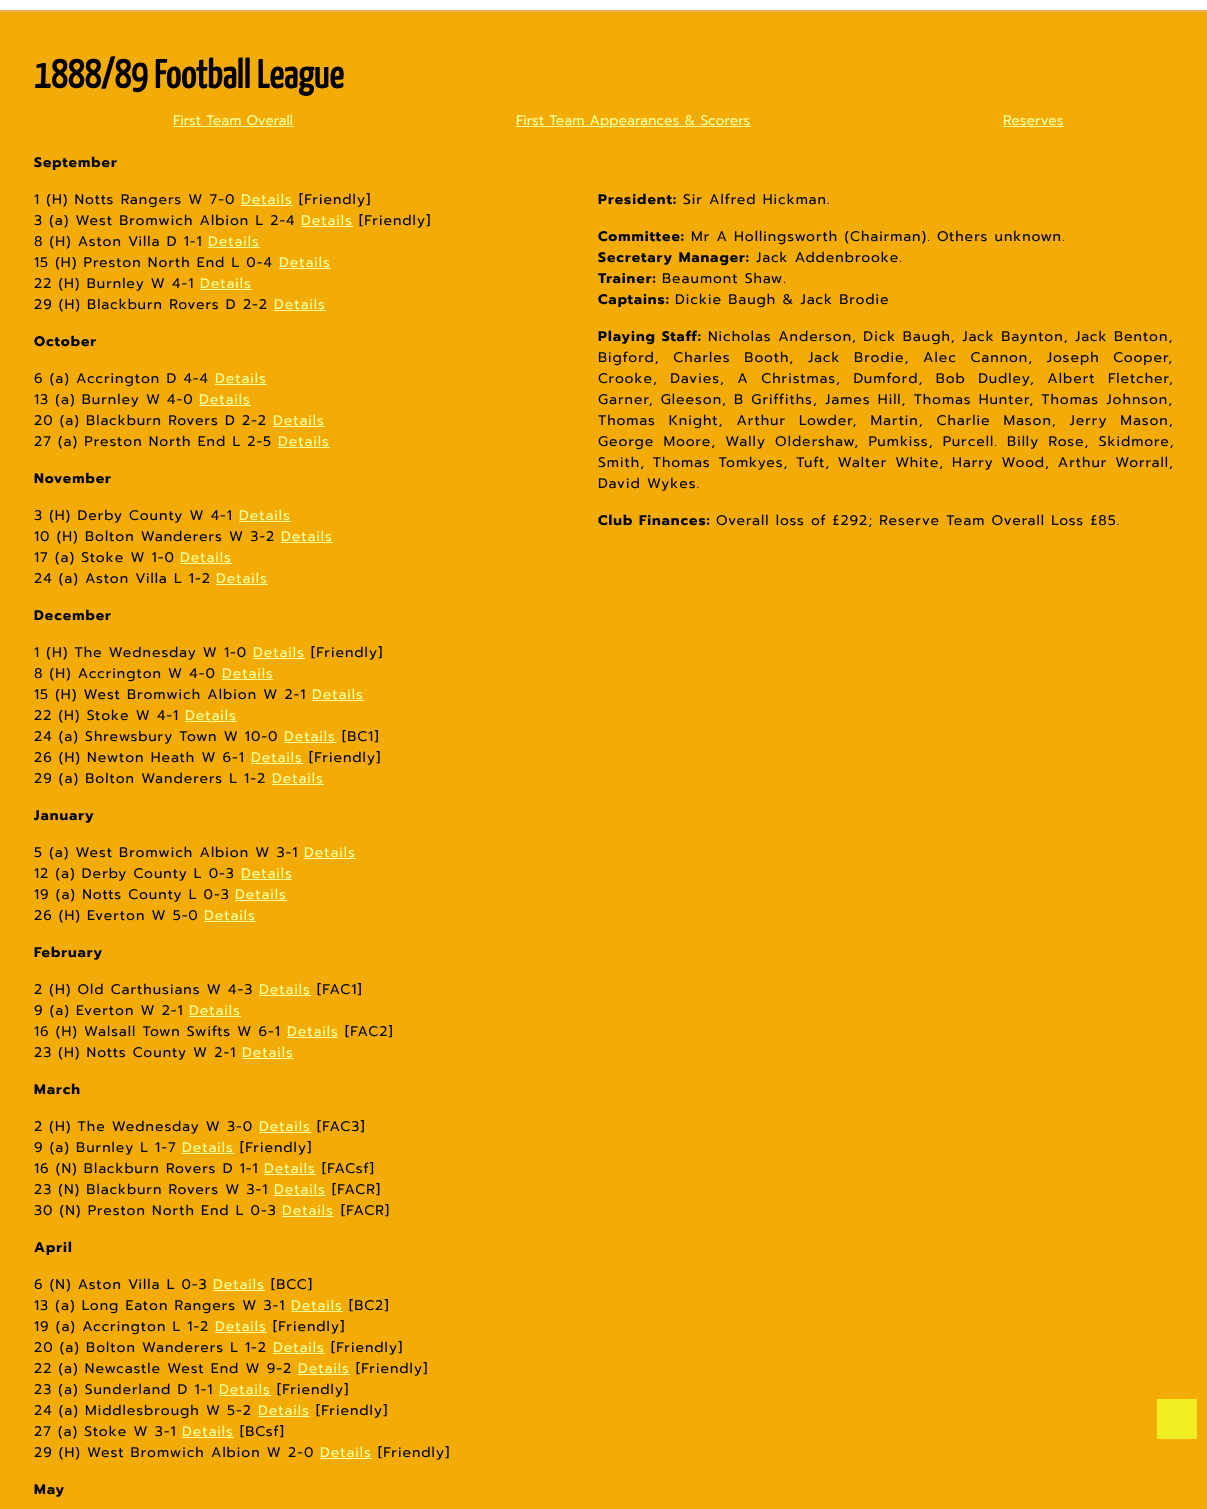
(async () => {
  const canvas = document.querySelector("canvas");
  canvas.width = 1207;
  canvas.height = 1509;
  const ctx = canvas.getContext("2d");
  ctx.miterLimit = 4;
  ctx.fontKerning = "normal";

  ctx.fillStyle = "#f2ab07";
  ctx.fillRect(0, 0, 1207, 1509);
  for (const [x, y, w, h, color] of [
    [0, 0, 1207, 10, "#ffffff"],
    [0, 10, 1207, 2, "#f8ae57"],
    [173, 126, 121, 1, "#ffff99"],
    [516, 126, 235, 1, "#ffff99"],
    [1003, 126, 61, 1, "#ffff99"],
    [241, 205, 52, 1, "#ffff99"],
    [301, 226, 52, 1, "#ffff99"],
    [208, 247, 52, 1, "#ffff99"],
    [279, 268, 52, 1, "#ffff99"],
    [200, 289, 52, 1, "#ffff99"],
    [274, 310, 52, 1, "#ffff99"],
    [215, 384, 52, 1, "#ffff99"],
    [199, 405, 52, 1, "#ffff99"],
    [273, 426, 52, 1, "#ffff99"],
    [278, 447, 52, 1, "#ffff99"],
    [239, 521, 52, 1, "#ffff99"],
    [281, 542, 52, 1, "#ffff99"],
    [180, 563, 52, 1, "#ffff99"],
    [216, 584, 52, 1, "#ffff99"],
    [253, 658, 52, 1, "#ffff99"],
    [222, 679, 51, 1, "#ffff99"],
    [312, 700, 52, 1, "#ffff99"],
    [185, 721, 52, 1, "#ffff99"],
    [284, 742, 52, 1, "#ffff99"],
    [251, 763, 52, 1, "#ffff99"],
    [272, 784, 52, 1, "#ffff99"],
    [304, 858, 52, 1, "#ffff99"],
    [241, 879, 51, 1, "#ffff99"],
    [235, 900, 52, 1, "#ffff99"],
    [204, 921, 52, 1, "#ffff99"],
    [259, 995, 52, 1, "#ffff99"],
    [189, 1016, 52, 1, "#ffff99"],
    [287, 1037, 51, 1, "#ffff99"],
    [242, 1058, 52, 1, "#ffff99"],
    [259, 1132, 52, 1, "#ffff99"],
    [182, 1153, 52, 1, "#ffff99"],
    [264, 1174, 52, 1, "#ffff99"],
    [274, 1195, 52, 1, "#ffff99"],
    [282, 1216, 52, 1, "#ffff99"],
    [213, 1290, 52, 1, "#ffff99"],
    [291, 1311, 52, 1, "#ffff99"],
    [215, 1332, 52, 1, "#ffff99"],
    [273, 1353, 52, 1, "#ffff99"],
    [298, 1374, 52, 1, "#ffff99"],
    [219, 1395, 52, 1, "#ffff99"],
    [258, 1416, 52, 1, "#ffff99"],
    [182, 1437, 52, 1, "#ffff99"],
    [320, 1458, 52, 1, "#ffff99"],
    [1157, 1399, 40, 40, "#eeee22"],
  ]) {
    ctx.fillStyle = color;
    ctx.fillRect(x, y, w, h);
  }
  ctx.font = "bold 40px Yanone Kaffeesatz";
  ctx.fillStyle = "#000000";
  ctx.fillText("1888/89 Football League", 34, 88);
  ctx.font = "14px Prompt";
  ctx.fillStyle = "#ffff99";
  for (const [text, x, y] of [
    ["First Team Overall", 173, 125],
    ["First Team Appearances & Scorers", 516, 125],
    ["Reserves", 1003, 125],
  ]) {
    ctx.fillText(text, x, y);
  }
  ctx.letterSpacing = "1px";
  ctx.font = "bold 14px Prompt";
  ctx.fillStyle = "#000000";
  ctx.fillText("September", 34, 167);
  ctx.font = "14px Prompt";
  ctx.fillText("1 (H) Notts Rangers W 7-0", 34, 204);
  ctx.fillStyle = "#ffff99";
  ctx.fillText("Details", 241, 204);
  ctx.fillStyle = "#000000";
  ctx.fillText("[Friendly]", 299, 204);
  ctx.fillText("3 (a) West Bromwich Albion L 2-4", 34, 225);
  ctx.fillStyle = "#ffff99";
  ctx.fillText("Details", 301, 225);
  ctx.fillStyle = "#000000";
  ctx.fillText("[Friendly]", 359, 225);
  ctx.fillText("8 (H) Aston Villa D 1-1", 34, 246);
  ctx.fillStyle = "#ffff99";
  ctx.fillText("Details", 208, 246);
  ctx.fillStyle = "#000000";
  ctx.fillText("15 (H) Preston North End L 0-4", 34, 267);
  ctx.fillStyle = "#ffff99";
  ctx.fillText("Details", 279, 267);
  ctx.fillStyle = "#000000";
  ctx.fillText("22 (H) Burnley W 4-1", 34, 288);
  ctx.fillStyle = "#ffff99";
  ctx.fillText("Details", 200, 288);
  ctx.fillStyle = "#000000";
  ctx.fillText("29 (H) Blackburn Rovers D 2-2", 34, 309);
  ctx.fillStyle = "#ffff99";
  ctx.fillText("Details", 274, 309);
  ctx.font = "bold 14px Prompt";
  ctx.fillStyle = "#000000";
  ctx.fillText("President:", 598, 204);
  ctx.font = "14px Prompt";
  ctx.fillText("Sir Alfred Hickman.", 683, 204);
  ctx.font = "bold 14px Prompt";
  ctx.fillText("Committee:", 598, 241);
  ctx.font = "14px Prompt";
  ctx.fillText("Mr A Hollingsworth (Chairman). Others unknown.", 691, 241);
  ctx.font = "bold 14px Prompt";
  ctx.fillText("Secretary Manager:", 598, 262);
  ctx.font = "14px Prompt";
  ctx.fillText("Jack Addenbrooke.", 756, 262);
  ctx.font = "bold 14px Prompt";
  ctx.fillText("Trainer:", 598, 283);
  ctx.font = "14px Prompt";
  ctx.fillText("Beaumont Shaw.", 662, 283);
  ctx.font = "bold 14px Prompt";
  ctx.fillText("Captains:", 598, 304);
  ctx.font = "14px Prompt";
  ctx.fillText("Dickie Baugh & Jack Brodie", 675, 304);
  ctx.font = "bold 14px Prompt";
  ctx.fillText("Playing Staff:", 598, 341);
  ctx.wordSpacing = "0.25px";
  ctx.font = "14px Prompt";
  ctx.fillText("Nicholas Anderson, Dick Baugh, Jack Baynton, Jack Benton,", 708, 341);
  ctx.wordSpacing = "7.5px";
  ctx.fillText("Bigford, Charles Booth, Jack Brodie, Alec Cannon, Joseph Cooper,", 598, 362);
  ctx.wordSpacing = "6.25px";
  ctx.fillText("Crooke, Davies, A Christmas, Dumford, Bob Dudley, Albert Fletcher,", 598, 383);
  ctx.wordSpacing = "1px";
  ctx.fillText("Garner, Gleeson, B Griffiths, James Hill, Thomas Hunter, Thomas Johnson,", 598, 404);
  ctx.wordSpacing = "6.75px";
  ctx.fillText("Thomas Knight, Arthur Lowder, Martin, Charlie Mason, Jerry Mason,", 598, 425);
  ctx.wordSpacing = "3px";
  ctx.fillText("George Moore, Wally Oldershaw, Pumkiss, Purcell. Billy Rose, Skidmore,", 598, 446);
  ctx.wordSpacing = "1.6px";
  ctx.fillText("Smith, Thomas Tomkyes, Tuft, Walter White, Harry Wood, Arthur Worrall,", 598, 467);
  ctx.wordSpacing = "0px";
  ctx.fillText("David Wykes.", 598, 488);
  ctx.font = "bold 14px Prompt";
  ctx.fillText("Club Finances:", 598, 525);
  ctx.font = "14px Prompt";
  ctx.fillText("Overall loss of £292; Reserve Team Overall Loss £85.", 716, 525);
  ctx.font = "bold 14px Prompt";
  ctx.fillText("October", 34, 346);
  ctx.font = "14px Prompt";
  ctx.fillText("6 (a) Accrington D 4-4", 34, 383);
  ctx.fillStyle = "#ffff99";
  ctx.fillText("Details", 215, 383);
  ctx.fillStyle = "#000000";
  ctx.fillText("13 (a) Burnley W 4-0", 34, 404);
  ctx.fillStyle = "#ffff99";
  ctx.fillText("Details", 199, 404);
  ctx.fillStyle = "#000000";
  ctx.fillText("20 (a) Blackburn Rovers D 2-2", 34, 425);
  ctx.fillStyle = "#ffff99";
  ctx.fillText("Details", 273, 425);
  ctx.fillStyle = "#000000";
  ctx.fillText("27 (a) Preston North End L 2-5", 34, 446);
  ctx.fillStyle = "#ffff99";
  ctx.fillText("Details", 278, 446);
  ctx.font = "bold 14px Prompt";
  ctx.fillStyle = "#000000";
  ctx.fillText("November", 34, 483);
  ctx.font = "14px Prompt";
  ctx.fillText("3 (H) Derby County W 4-1", 34, 520);
  ctx.fillStyle = "#ffff99";
  ctx.fillText("Details", 239, 520);
  ctx.fillStyle = "#000000";
  ctx.fillText("10 (H) Bolton Wanderers W 3-2", 34, 541);
  ctx.fillStyle = "#ffff99";
  ctx.fillText("Details", 281, 541);
  ctx.fillStyle = "#000000";
  ctx.fillText("17 (a) Stoke W 1-0", 34, 562);
  ctx.fillStyle = "#ffff99";
  ctx.fillText("Details", 180, 562);
  ctx.fillStyle = "#000000";
  ctx.fillText("24 (a) Aston Villa L 1-2", 34, 583);
  ctx.fillStyle = "#ffff99";
  ctx.fillText("Details", 216, 583);
  ctx.font = "bold 14px Prompt";
  ctx.fillStyle = "#000000";
  ctx.fillText("December", 34, 620);
  ctx.font = "14px Prompt";
  ctx.fillText("1 (H) The Wednesday W 1-0", 34, 657);
  ctx.fillStyle = "#ffff99";
  ctx.fillText("Details", 253, 657);
  ctx.fillStyle = "#000000";
  ctx.fillText("[Friendly]", 311, 657);
  ctx.fillText("8 (H) Accrington W 4-0", 34, 678);
  ctx.fillStyle = "#ffff99";
  ctx.fillText("Details", 222, 678);
  ctx.fillStyle = "#000000";
  ctx.fillText("15 (H) West Bromwich Albion W 2-1", 34, 699);
  ctx.fillStyle = "#ffff99";
  ctx.fillText("Details", 312, 699);
  ctx.fillStyle = "#000000";
  ctx.fillText("22 (H) Stoke W 4-1", 34, 720);
  ctx.fillStyle = "#ffff99";
  ctx.fillText("Details", 185, 720);
  ctx.fillStyle = "#000000";
  ctx.fillText("24 (a) Shrewsbury Town W 10-0", 34, 741);
  ctx.fillStyle = "#ffff99";
  ctx.fillText("Details", 284, 741);
  ctx.fillStyle = "#000000";
  ctx.fillText("[BC1]", 342, 741);
  ctx.fillText("26 (H) Newton Heath W 6-1", 34, 762);
  ctx.fillStyle = "#ffff99";
  ctx.fillText("Details", 251, 762);
  ctx.fillStyle = "#000000";
  ctx.fillText("[Friendly]", 309, 762);
  ctx.fillText("29 (a) Bolton Wanderers L 1-2", 34, 783);
  ctx.fillStyle = "#ffff99";
  ctx.fillText("Details", 272, 783);
  ctx.font = "bold 14px Prompt";
  ctx.fillStyle = "#000000";
  ctx.fillText("January", 34, 820);
  ctx.font = "14px Prompt";
  ctx.fillText("5 (a) West Bromwich Albion W 3-1", 34, 857);
  ctx.fillStyle = "#ffff99";
  ctx.fillText("Details", 304, 857);
  ctx.fillStyle = "#000000";
  ctx.fillText("12 (a) Derby County L 0-3", 34, 878);
  ctx.fillStyle = "#ffff99";
  ctx.fillText("Details", 241, 878);
  ctx.fillStyle = "#000000";
  ctx.fillText("19 (a) Notts County L 0-3", 34, 899);
  ctx.fillStyle = "#ffff99";
  ctx.fillText("Details", 235, 899);
  ctx.fillStyle = "#000000";
  ctx.fillText("26 (H) Everton W 5-0", 34, 920);
  ctx.fillStyle = "#ffff99";
  ctx.fillText("Details", 204, 920);
  ctx.font = "bold 14px Prompt";
  ctx.fillStyle = "#000000";
  ctx.fillText("February", 34, 957);
  ctx.font = "14px Prompt";
  ctx.fillText("2 (H) Old Carthusians W 4-3", 34, 994);
  ctx.fillStyle = "#ffff99";
  ctx.fillText("Details", 259, 994);
  ctx.fillStyle = "#000000";
  ctx.fillText("[FAC1]", 317, 994);
  ctx.fillText("9 (a) Everton W 2-1", 34, 1015);
  ctx.fillStyle = "#ffff99";
  ctx.fillText("Details", 189, 1015);
  ctx.fillStyle = "#000000";
  ctx.fillText("16 (H) Walsall Town Swifts W 6-1", 34, 1036);
  ctx.fillStyle = "#ffff99";
  ctx.fillText("Details", 287, 1036);
  ctx.fillStyle = "#000000";
  ctx.fillText("[FAC2]", 345, 1036);
  ctx.fillText("23 (H) Notts County W 2-1", 34, 1057);
  ctx.fillStyle = "#ffff99";
  ctx.fillText("Details", 242, 1057);
  ctx.font = "bold 14px Prompt";
  ctx.fillStyle = "#000000";
  ctx.fillText("March", 34, 1094);
  ctx.font = "14px Prompt";
  ctx.fillText("2 (H) The Wednesday W 3-0", 34, 1131);
  ctx.fillStyle = "#ffff99";
  ctx.fillText("Details", 259, 1131);
  ctx.fillStyle = "#000000";
  ctx.fillText("[FAC3]", 317, 1131);
  ctx.fillText("9 (a) Burnley L 1-7", 34, 1152);
  ctx.fillStyle = "#ffff99";
  ctx.fillText("Details", 182, 1152);
  ctx.fillStyle = "#000000";
  ctx.fillText("[Friendly]", 240, 1152);
  ctx.fillText("16 (N) Blackburn Rovers D 1-1", 34, 1173);
  ctx.fillStyle = "#ffff99";
  ctx.fillText("Details", 264, 1173);
  ctx.fillStyle = "#000000";
  ctx.fillText("[FACsf]", 322, 1173);
  ctx.fillText("23 (N) Blackburn Rovers W 3-1", 34, 1194);
  ctx.fillStyle = "#ffff99";
  ctx.fillText("Details", 274, 1194);
  ctx.fillStyle = "#000000";
  ctx.fillText("[FACR]", 332, 1194);
  ctx.fillText("30 (N) Preston North End L 0-3", 34, 1215);
  ctx.fillStyle = "#ffff99";
  ctx.fillText("Details", 282, 1215);
  ctx.fillStyle = "#000000";
  ctx.fillText("[FACR]", 341, 1215);
  ctx.font = "bold 14px Prompt";
  ctx.fillText("April", 34, 1252);
  ctx.font = "14px Prompt";
  ctx.fillText("6 (N) Aston Villa L 0-3", 34, 1289);
  ctx.fillStyle = "#ffff99";
  ctx.fillText("Details", 213, 1289);
  ctx.fillStyle = "#000000";
  ctx.fillText("[BCC]", 271, 1289);
  ctx.fillText("13 (a) Long Eaton Rangers W 3-1", 34, 1310);
  ctx.fillStyle = "#ffff99";
  ctx.fillText("Details", 291, 1310);
  ctx.fillStyle = "#000000";
  ctx.fillText("[BC2]", 349, 1310);
  ctx.fillText("19 (a) Accrington L 1-2", 34, 1331);
  ctx.fillStyle = "#ffff99";
  ctx.fillText("Details", 215, 1331);
  ctx.fillStyle = "#000000";
  ctx.fillText("[Friendly]", 273, 1331);
  ctx.fillText("20 (a) Bolton Wanderers L 1-2", 34, 1352);
  ctx.fillStyle = "#ffff99";
  ctx.fillText("Details", 273, 1352);
  ctx.fillStyle = "#000000";
  ctx.fillText("[Friendly]", 331, 1352);
  ctx.fillText("22 (a) Newcastle West End W 9-2", 34, 1373);
  ctx.fillStyle = "#ffff99";
  ctx.fillText("Details", 298, 1373);
  ctx.fillStyle = "#000000";
  ctx.fillText("[Friendly]", 356, 1373);
  ctx.fillText("23 (a) Sunderland D 1-1", 34, 1394);
  ctx.fillStyle = "#ffff99";
  ctx.fillText("Details", 219, 1394);
  ctx.fillStyle = "#000000";
  ctx.fillText("[Friendly]", 277, 1394);
  ctx.fillText("24 (a) Middlesbrough W 5-2", 34, 1415);
  ctx.fillStyle = "#ffff99";
  ctx.fillText("Details", 258, 1415);
  ctx.fillStyle = "#000000";
  ctx.fillText("[Friendly]", 316, 1415);
  ctx.fillText("27 (a) Stoke W 3-1", 34, 1436);
  ctx.fillStyle = "#ffff99";
  ctx.fillText("Details", 182, 1436);
  ctx.fillStyle = "#000000";
  ctx.fillText("[BCsf]", 240, 1436);
  ctx.fillText("29 (H) West Bromwich Albion W 2-0", 34, 1457);
  ctx.fillStyle = "#ffff99";
  ctx.fillText("Details", 320, 1457);
  ctx.fillStyle = "#000000";
  ctx.fillText("[Friendly]", 378, 1457);
  ctx.font = "bold 14px Prompt";
  ctx.fillText("May", 34, 1494);
})();
